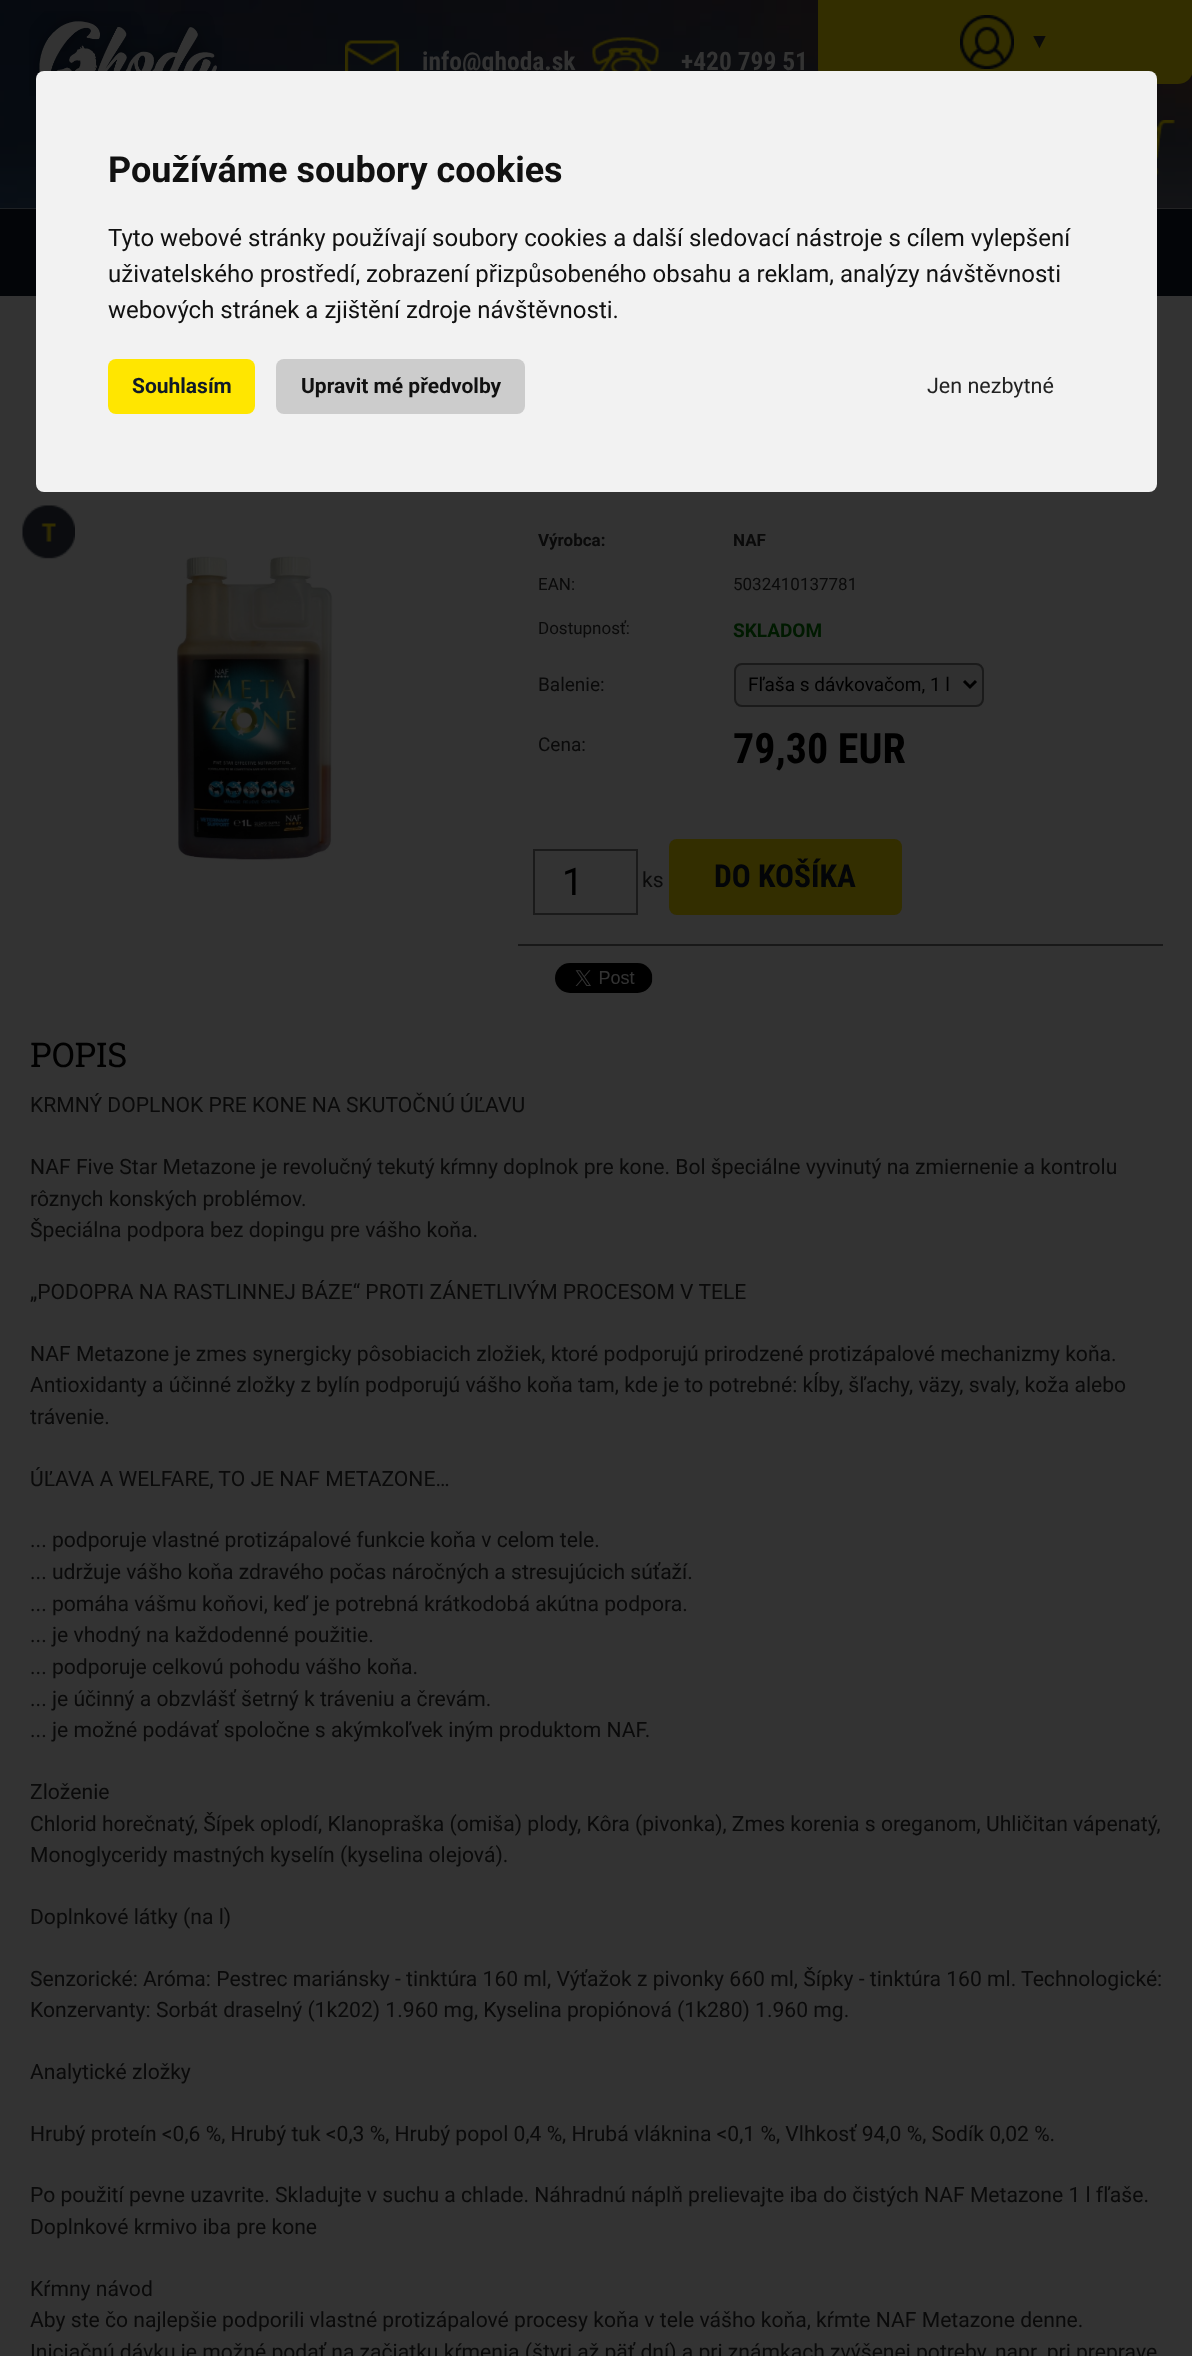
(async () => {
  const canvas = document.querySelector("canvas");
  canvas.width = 1192;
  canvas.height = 2356;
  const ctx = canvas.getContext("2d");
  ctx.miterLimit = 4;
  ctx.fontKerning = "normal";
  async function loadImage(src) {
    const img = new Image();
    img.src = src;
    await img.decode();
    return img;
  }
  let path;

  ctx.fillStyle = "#333333";
  ctx.fillRect(0, 0, 1192, 2356);
  ctx.drawImage(await loadImage("img/1.png"), 0, 0, 1192, 209);
  ctx.drawImage(await loadImage("img/2.png"), 29, 11, 193, 85);
  ctx.fillStyle = "#332e00";
  path = new Path2D("M818 0H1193V69C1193 77.5 1186.5 84 1178 84H833C824.5 84 818 77.5 818 69Z");
  ctx.fill(path);
  ctx.drawImage(await loadImage("img/3.png"), 960, 15, 54, 54);
  ctx.drawImage(await loadImage("img/4.png"), 1157, 120, 18, 56);
  ctx.drawImage(await loadImage("img/5.png"), 345, 40, 54, 31);
  ctx.drawImage(await loadImage("img/6.png"), 592, 37, 67, 34);
  ctx.fillStyle = "#030508";
  ctx.fillRect(0, 209, 1192, 87);
  ctx.drawImage(await loadImage("img/7.png"), 22, 505, 53, 54);
  ctx.drawImage(await loadImage("img/8.png"), 176, 555, 157, 306);
  ctx.fillStyle = "#303030";
  ctx.beginPath();
  ctx.roundRect(735, 664, 248, 42, 7);
  ctx.fill();
  ctx.strokeStyle = "#1a1a1a";
  ctx.lineWidth = 2;
  ctx.stroke();
  path = new Path2D("M964 681L970 687L976 681");
  ctx.strokeStyle = "#000000";
  ctx.lineWidth = 3;
  ctx.stroke(path);
  ctx.strokeStyle = "#1a1a1a";
  ctx.lineWidth = 2;
  ctx.strokeRect(534, 850, 103, 64);
  ctx.fillStyle = "#332e00";
  ctx.beginPath();
  ctx.roundRect(669, 839, 233, 76, 8);
  ctx.fill();
  ctx.fillStyle = "#181818";
  ctx.fillRect(518, 944, 645, 2);
  ctx.drawImage(await loadImage("img/9.png"), 555, 963, 98, 30);
  ctx.font = "21.12px Liberation Sans";
  ctx.fillStyle = "#0a0a0a";
  ctx.fillText("▼", 1029, 48);
  ctx.font = "bold 25.5px Roboto Condensed";
  ctx.fillStyle = "#333333";
  ctx.fillText("info@ghoda.sk", 422, 70);
  ctx.fillText("+420 799 51", 681, 70);
  ctx.fillStyle = "#f2f2f2";
  ctx.beginPath();
  ctx.roundRect(36, 71, 1121, 421, 8);
  ctx.fill();
  ctx.font = "bold 36px Roboto";
  ctx.fillStyle = "#111111";
  ctx.fillText("Používáme soubory cookies", 108, 182);
  ctx.font = "24px Roboto";
  for (const [text, x, y] of [
    ["Tyto webové stránky používají soubory cookies a další sledovací nástroje s cílem vylepšení", 108, 246],
    ["uživatelského prostředí, zobrazení přizpůsobeného obsahu a reklam, analýzy návštěvnosti", 108, 282],
    ["webových stránek a zjištění zdroje návštěvnosti.", 108, 318],
  ]) {
    ctx.fillText(text, x, y);
  }
  ctx.fillStyle = "#ffe600";
  ctx.beginPath();
  ctx.roundRect(108, 359, 147, 55, 8);
  ctx.fill();
  ctx.font = "bold 21px Roboto";
  ctx.fillStyle = "#0f1928";
  ctx.fillText("Souhlasím", 132, 393);
  ctx.fillStyle = "#cccccc";
  ctx.beginPath();
  ctx.roundRect(276, 359, 249, 55, 8);
  ctx.fill();
  ctx.fillStyle = "#111111";
  ctx.fillText("Upravit mé předvolby", 301, 393);
  ctx.font = "21.5px Roboto";
  ctx.fillStyle = "#222222";
  ctx.fillText("Jen nezbytné", 927, 393);
  ctx.font = "bold 17px Roboto";
  ctx.fillStyle = "#0a0a0a";
  ctx.fillText("Výrobca:", 538, 546);
  ctx.fillText("NAF", 733, 546);
  ctx.font = "17px Roboto";
  for (const [text, x, y] of [
    ["EAN:", 538, 590],
    ["5032410137781", 733, 590],
    ["Dostupnosť:", 538, 634],
  ]) {
    ctx.fillText(text, x, y);
  }
  ctx.font = "bold 19px Roboto";
  ctx.fillStyle = "#001a00";
  ctx.fillText("SKLADOM", 733, 637);
  ctx.font = "19px Roboto";
  ctx.fillStyle = "#0a0a0a";
  ctx.fillText("Balenie:", 538, 691);
  ctx.fillStyle = "#000000";
  ctx.fillText("Fľaša s dávkovačom, 1 l", 748, 691);
  ctx.fillStyle = "#0a0a0a";
  ctx.fillText("Cena:", 538, 751);
  ctx.font = "bold 42px Roboto Condensed";
  ctx.fillStyle = "#000000";
  ctx.fillText("79,30 EUR", 733, 763);
  ctx.font = "38px Roboto";
  ctx.fillText("1", 562, 895);
  ctx.font = "21.12px Roboto";
  ctx.fillStyle = "#0a0a0a";
  ctx.fillText("ks", 642, 887);
  ctx.font = "bold 31.5px Roboto Condensed";
  ctx.fillStyle = "#030508";
  ctx.fillText("DO KOŠÍKA", 714, 887);
  ctx.font = "34px Roboto Slab";
  ctx.fillStyle = "#000000";
  ctx.fillText("POPIS", 30, 1067);
  ctx.font = "21.12px Roboto";
  ctx.fillStyle = "#0a0a0a";
  for (const [text, x, y] of [
    ["KRMNÝ DOPLNOK PRE KONE NA SKUTOČNÚ ÚĽAVU", 30, 1112],
    ["NAF Five Star Metazone je revolučný tekutý kŕmny doplnok pre kone. Bol špeciálne vyvinutý na zmiernenie a kontrolu", 30, 1174],
    ["rôznych konských problémov.", 30, 1206],
    ["Špeciálna podpora bez dopingu pre vášho koňa.", 30, 1237],
    ["„PODOPRA NA RASTLINNEJ BÁZE“ PROTI ZÁNETLIVÝM PROCESOM V TELE", 30, 1299],
    ["NAF Metazone je zmes synergicky pôsobiacich zložiek, ktoré podporujú prirodzené protizápalové mechanizmy koňa.", 30, 1361],
    ["Antioxidanty a účinné zložky z bylín podporujú vášho koňa tam, kde je to potrebné: kĺby, šľachy, väzy, svaly, koža alebo", 30, 1392],
    ["trávenie.", 30, 1424],
    ["ÚĽAVA A WELFARE, TO JE NAF METAZONE…", 30, 1486],
    ["... podporuje vlastné protizápalové funkcie koňa v celom tele.", 30, 1547],
    ["... udržuje vášho koňa zdravého počas náročných a stresujúcich súťaží.", 30, 1579],
    ["... pomáha vášmu koňovi, keď je potrebná krátkodobá akútna podpora.", 30, 1611],
    ["... je vhodný na každodenné použitie.", 30, 1642],
    ["... podporuje celkovú pohodu vášho koňa.", 30, 1674],
    ["... je účinný a obzvlášť šetrný k tráveniu a črevám.", 30, 1706],
    ["... je možné podávať spoločne s akýmkoľvek iným produktom NAF.", 30, 1737],
    ["Zloženie", 30, 1799],
    ["Chlorid horečnatý, Šípek oplodí, Klanopraška (omiša) plody, Kôra (pivonka), Zmes korenia s oreganom, Uhličitan vápenatý,", 30, 1831],
    ["Monoglyceridy mastných kyselín (kyselina olejová).", 30, 1862],
    ["Doplnkové látky (na l)", 30, 1924],
    ["Senzorické: Aróma: Pestrec mariánsky - tinktúra 160 ml, Výťažok z pivonky 660 ml, Šípky - tinktúra 160 ml. Technologické:", 30, 1986],
    ["Konzervanty: Sorbát draselný (1k202) 1.960 mg, Kyselina propiónová (1k280) 1.960 mg.", 30, 2017],
    ["Analytické zložky", 30, 2079],
    ["Hrubý proteín <0,6 %, Hrubý tuk <0,3 %, Hrubý popol 0,4 %, Hrubá vláknina <0,1 %, Vlhkosť 94,0 %, Sodík 0,02 %.", 30, 2141],
    ["Po použití pevne uzavrite. Skladujte v suchu a chlade. Náhradnú náplň prelievajte iba do čistých NAF Metazone 1 l fľaše.", 30, 2202],
    ["Doplnkové krmivo iba pre kone", 30, 2234],
    ["Kŕmny návod", 30, 2296],
    ["Aby ste čo najlepšie podporili vlastné protizápalové procesy koňa v tele vášho koňa, kŕmte NAF Metazone denne.", 30, 2327],
    ["Iniciačnú dávku je možné podať na začiatku kŕmenia (štyri až päť dní) a pri známkach zvýšenej potreby, napr. pri preprave", 30, 2359],
  ]) {
    ctx.fillText(text, x, y);
  }
})();
